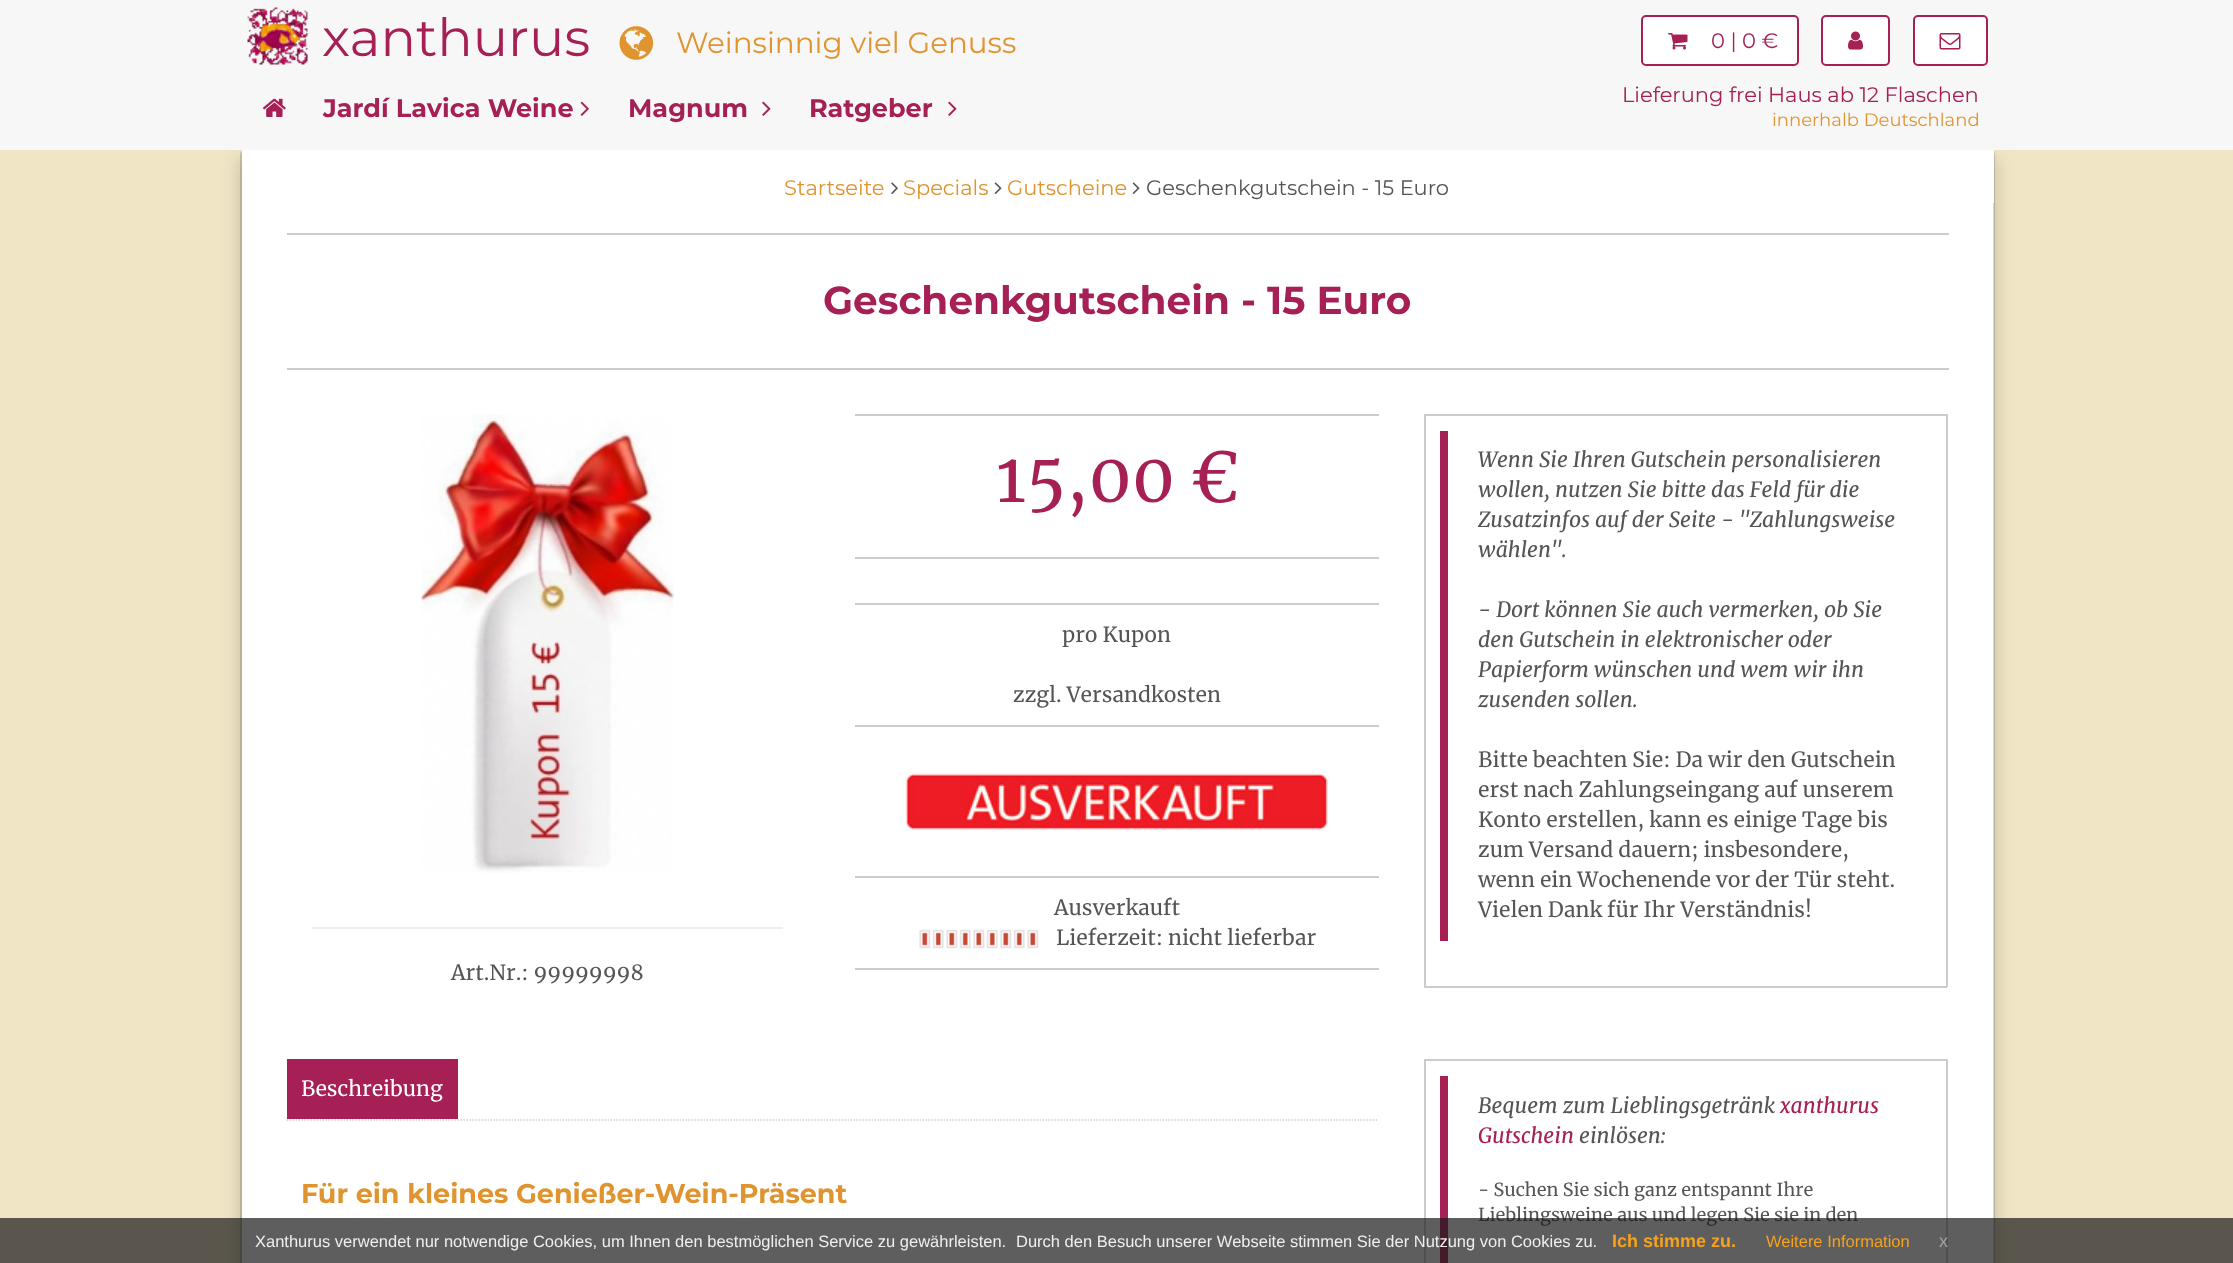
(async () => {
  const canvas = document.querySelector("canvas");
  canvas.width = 2233;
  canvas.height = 1263;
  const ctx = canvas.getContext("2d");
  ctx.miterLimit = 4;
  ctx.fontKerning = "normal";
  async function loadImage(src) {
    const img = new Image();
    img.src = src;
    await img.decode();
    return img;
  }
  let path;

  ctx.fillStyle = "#f0e5c5";
  ctx.fillRect(0, 0, 2233, 1263);
  ctx.fillStyle = "rgba(0, 0, 0, 0.18)";
  ctx.filter = "blur(9px)";
  ctx.beginPath();
  ctx.roundRect(240, 158, 1755, 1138, 6);
  ctx.fill();
  ctx.filter = "none";
  ctx.fillStyle = "#ffffff";
  ctx.fillRect(242, 203, 1752, 1060);
  ctx.beginPath();
  ctx.roundRect(241, 150, 1753, 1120, 5);
  ctx.strokeStyle = "rgba(0, 0, 0, 0.15)";
  ctx.lineWidth = 2;
  ctx.stroke();
  ctx.fillStyle = "#f7f7f7";
  ctx.fillRect(0, 0, 2233, 150);
  ctx.drawImage(await loadImage("img/1.png"), 247, 7, 61, 58);
  ctx.drawImage(await loadImage("img/2.png"), 619, 26, 35, 34);
  ctx.fillStyle = "#ffffff";
  ctx.beginPath();
  ctx.roundRect(1642, 16, 156, 49, 4);
  ctx.fill();
  ctx.strokeStyle = "#a62055";
  ctx.stroke();
  ctx.drawImage(await loadImage("img/3.png"), 1668, 33, 20, 17);
  ctx.beginPath();
  ctx.roundRect(1822, 16, 67, 49, 4);
  ctx.fill();
  ctx.stroke();
  ctx.drawImage(await loadImage("img/4.png"), 1848, 31, 15, 19);
  ctx.beginPath();
  ctx.roundRect(1914, 16, 73, 49, 4);
  ctx.fill();
  ctx.stroke();
  ctx.drawImage(await loadImage("img/5.png"), 1939, 33, 22, 17);
  ctx.drawImage(await loadImage("img/6.png"), 262, 98, 24, 19);
  ctx.drawImage(await loadImage("img/7.png"), 580, 101, 9, 15);
  ctx.drawImage(await loadImage("img/8.png"), 762, 101, 9, 15);
  ctx.drawImage(await loadImage("img/8.png"), 948, 101, 9, 15);
  ctx.fillRect(242, 150, 1752, 53);
  ctx.drawImage(await loadImage("img/9.png"), 891, 182, 7, 12);
  ctx.drawImage(await loadImage("img/10.png"), 994, 182, 8, 12);
  ctx.drawImage(await loadImage("img/10.png"), 1132, 182, 8, 12);
  for (const [x, y, w, h, color] of [
    [287, 233, 1662, 2, "#cccccc"],
    [287, 368, 1662, 2, "#cccccc"],
    [855, 414, 524, 2, "#cccccc"],
    [855, 557, 524, 2, "#cccccc"],
    [855, 603, 524, 2, "#cccccc"],
    [855, 725, 524, 2, "#cccccc"],
  ]) {
    ctx.fillStyle = color;
    ctx.fillRect(x, y, w, h);
  }
  ctx.drawImage(await loadImage("img/11.png"), 903, 771, 426, 60);
  ctx.fillRect(855, 876, 524, 2);
  ctx.fillRect(855, 968, 524, 2);
  ctx.drawImage(await loadImage("img/12.png"), 919, 929, 120, 20);
  for (const [x, y, w, h, color] of [
    [1424, 414, 523, 2, "#cccccc"],
    [1946, 414, 2, 573, "#cccccc"],
    [1424, 986, 523, 2, "#cccccc"],
    [1424, 414, 2, 573, "#cccccc"],
    [1440, 431, 8, 510, "#a62055"],
  ]) {
    ctx.fillStyle = color;
    ctx.fillRect(x, y, w, h);
  }
  ctx.drawImage(await loadImage("img/13.png"), 421, 414, 253, 459);
  ctx.fillStyle = "#eeeeee";
  ctx.fillRect(312, 927, 471, 2);
  ctx.fillStyle = "#a62055";
  ctx.fillRect(287, 1059, 171, 60);
  path = new Path2D("M286.5 1120H1378.5");
  ctx.strokeStyle = "#cccccc";
  ctx.lineWidth = 1.5;
  ctx.setLineDash([1.5, 1.5]);
  ctx.stroke(path);
  for (const [x, y, w, h, color] of [
    [1424, 1059, 523, 2, "#cccccc"],
    [1946, 1059, 2, 204, "#cccccc"],
    [1424, 1059, 2, 204, "#cccccc"],
    [1440, 1076, 8, 187, "#a62055"],
  ]) {
    ctx.fillStyle = color;
    ctx.fillRect(x, y, w, h);
  }
  ctx.font = "100 52.5px Montserrat";
  ctx.fillText("xanthurus", 322, 56);
  ctx.font = "100 29.4px Montserrat";
  ctx.fillStyle = "#df942f";
  ctx.fillText("Weinsinnig viel Genuss", 676, 53);
  ctx.font = "100 21px Montserrat";
  ctx.fillStyle = "#a62055";
  ctx.fillText("0 | 0 €", 1711, 48);
  ctx.font = "100 25.5px 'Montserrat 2'";
  for (const [text, x, y] of [
    ["Jardí Lavica Weine", 323, 117],
    ["Magnum", 628, 117],
    ["Ratgeber", 809, 117],
  ]) {
    ctx.fillText(text, x, y);
  }
  ctx.font = "100 21px Montserrat";
  ctx.fillText("Lieferung frei Haus ab 12 Flaschen", 1622, 102);
  ctx.font = "100 18px Montserrat";
  ctx.fillStyle = "#df942f";
  ctx.fillText("innerhalb Deutschland", 1772, 126);
  ctx.font = "100 21px Montserrat";
  for (const [text, x, y] of [
    ["Startseite", 784, 195],
    ["Specials", 903, 195],
    ["Gutscheine", 1007, 195],
  ]) {
    ctx.fillText(text, x, y);
  }
  ctx.fillStyle = "#555555";
  ctx.fillText("Geschenkgutschein - 15 Euro", 1146, 195);
  ctx.font = "100 39px 'Montserrat 2'";
  ctx.fillStyle = "#a62055";
  ctx.fillText("Geschenkgutschein - 15 Euro", 823, 314);
  ctx.font = "67.5px Merriweather";
  ctx.fillText("15,00 €", 996, 502);
  ctx.font = "21px Merriweather";
  ctx.fillStyle = "#555555";
  for (const [text, x, y] of [
    ["pro Kupon", 1062, 642],
    ["zzgl. Versandkosten", 1013, 702],
    ["Ausverkauft", 1054, 915],
    ["Lieferzeit: nicht lieferbar", 1056, 945],
  ]) {
    ctx.fillText(text, x, y);
  }
  ctx.font = "italic 21px Merriweather";
  for (const [text, x, y] of [
    ["Wenn Sie Ihren Gutschein personalisieren", 1478, 467],
    ["wollen, nutzen Sie bitte das Feld für die", 1478, 497],
    ["Zusatzinfos auf der Seite - \"Zahlungsweise", 1478, 527],
    ["wählen\".", 1478, 557],
    ["- Dort können Sie auch vermerken, ob Sie", 1478, 617],
    ["den Gutschein in elektronischer oder", 1478, 647],
    ["Papierform wünschen und wem wir ihn", 1478, 677],
    ["zusenden sollen.", 1478, 707],
  ]) {
    ctx.fillText(text, x, y);
  }
  ctx.font = "21px Merriweather";
  for (const [text, x, y] of [
    ["Bitte beachten Sie: Da wir den Gutschein", 1478, 767],
    ["erst nach Zahlungseingang auf unserem", 1478, 797],
    ["Konto erstellen, kann es einige Tage bis", 1478, 827],
    ["zum Versand dauern; insbesondere,", 1478, 857],
    ["wenn ein Wochenende vor der Tür steht.", 1478, 887],
    ["Vielen Dank für Ihr Verständnis!", 1478, 917],
    ["Art.Nr.: 99999998", 451, 980],
  ]) {
    ctx.fillText(text, x, y);
  }
  ctx.fillStyle = "#ffffff";
  ctx.fillText("Beschreibung", 301, 1096);
  ctx.font = "100 27px 'Montserrat 2'";
  ctx.fillStyle = "#df942f";
  ctx.fillText("Für ein kleines Genießer-Wein-Präsent", 301, 1203);
  ctx.font = "italic 21px Merriweather";
  ctx.fillStyle = "#555555";
  ctx.fillText("Bequem zum Lieblingsgetränk", 1478, 1113);
  ctx.fillStyle = "#a62055";
  ctx.fillText("xanthurus", 1780, 1113);
  ctx.fillText("Gutschein", 1478, 1143);
  ctx.fillStyle = "#555555";
  ctx.fillText("einlösen:", 1579, 1143);
  ctx.font = "18px Merriweather";
  ctx.fillText("- Suchen Sie sich ganz entspannt Ihre", 1478, 1196);
  ctx.fillText("Lieblingsweine aus und legen Sie sie in den", 1478, 1221);
  ctx.fillStyle = "rgba(25, 25, 25, 0.7)";
  ctx.fillRect(0, 1218, 2233, 45);
  ctx.font = "16.5px Liberation Sans";
  ctx.fillStyle = "#efefef";
  ctx.fillText("Xanthurus verwendet nur notwendige Cookies, um Ihnen den bestmöglichen Service zu gewährleisten.", 255, 1247);
  ctx.fillText("Durch den Besuch unserer Webseite stimmen Sie der Nutzung von Cookies zu.", 1016, 1247);
  ctx.font = "bold 18px Liberation Sans";
  ctx.fillStyle = "#f6a21d";
  ctx.fillText("Ich stimme zu.", 1612, 1247);
  ctx.font = "16.5px Liberation Sans";
  ctx.fillText("Weitere Information", 1766, 1247);
  ctx.font = "18px Liberation Sans";
  ctx.fillStyle = "#a2a2a2";
  ctx.fillText("x", 1939, 1247);
})();
